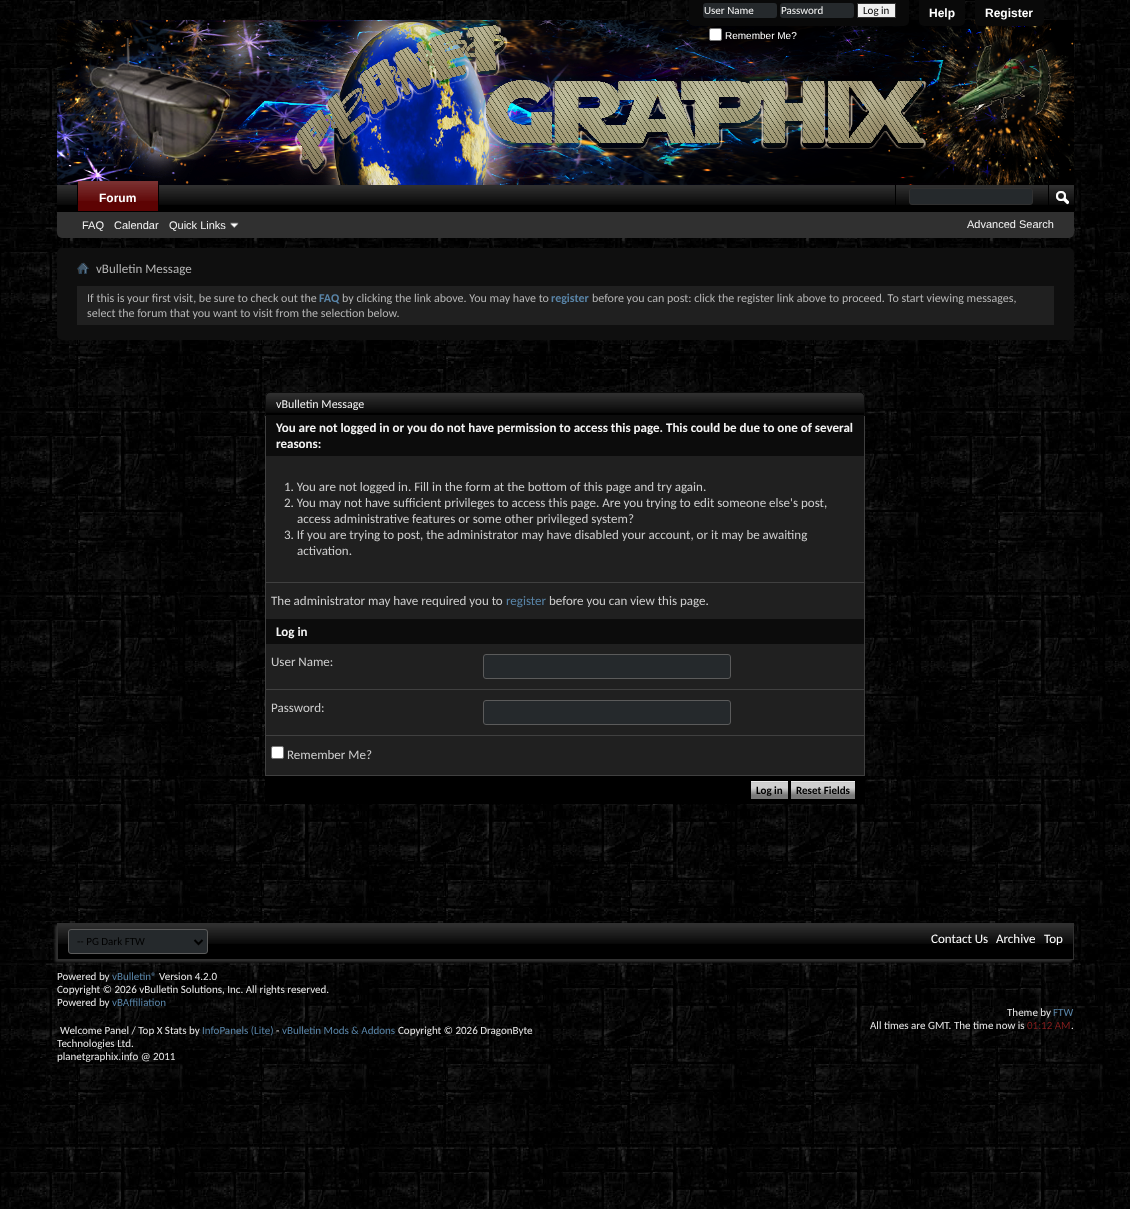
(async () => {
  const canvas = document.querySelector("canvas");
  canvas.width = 1130;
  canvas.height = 1209;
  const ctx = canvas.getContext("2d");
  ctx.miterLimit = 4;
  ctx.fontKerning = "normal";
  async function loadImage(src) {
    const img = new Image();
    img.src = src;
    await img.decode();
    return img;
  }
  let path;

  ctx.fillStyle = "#ffffff";
  ctx.fillRect(0, 0, 1130, 1209);
  ctx.drawImage(await loadImage("img/1.png"), 0, 0, 1130, 1209);
  ctx.drawImage(await loadImage("img/2.png"), 57, 20, 1017, 165);
  ctx.fillStyle = "#090909";
  ctx.beginPath();
  ctx.roundRect(689, 0, 220, 26, [0, 0, 5, 5]);
  ctx.fill();
  ctx.fillStyle = "#25292c";
  ctx.beginPath();
  ctx.roundRect(703, 3, 74, 15, 3);
  ctx.fill();
  ctx.beginPath();
  ctx.roundRect(780, 3, 74, 15, 3);
  ctx.fill();
  ctx.fillStyle = "#efefef";
  ctx.beginPath();
  ctx.rect(857.5, 3.5, 38, 14);
  ctx.fill();
  ctx.strokeStyle = "#303030";
  ctx.stroke();
  ctx.fillStyle = "#ffffff";
  ctx.beginPath();
  ctx.roundRect(709.5, 28.5, 12, 12, 1.5);
  ctx.fill();
  ctx.strokeStyle = "#767676";
  ctx.stroke();
  ctx.fillStyle = "#090909";
  ctx.beginPath();
  ctx.roundRect(919, 0, 46, 26, [0, 0, 5, 5]);
  ctx.fill();
  ctx.beginPath();
  ctx.roundRect(975, 0, 69, 26, [0, 0, 5, 5]);
  ctx.fill();
  ctx.fillStyle = "#303030";
  ctx.beginPath();
  ctx.roundRect(57, 185, 1017, 53, [0, 0, 5, 5]);
  ctx.fill();
  ctx.fillStyle = "#000000";
  ctx.fillRect(57, 185, 1017, 27);
  ctx.drawImage(await loadImage("img/3.png"), 57, 185, 1017, 20);
  for (const [x, y, w, h, color] of [
    [158, 185, 1, 26, "#000000"],
    [77, 185, 1, 26, "#000000"],
    [78, 181, 80, 30, "#5d0303"],
  ]) {
    ctx.fillStyle = color;
    ctx.fillRect(x, y, w, h);
  }
  ctx.drawImage(await loadImage("img/4.png"), 78, 181, 80, 20);
  ctx.drawImage(await loadImage("img/5.png"), 230, 222, 9, 6);
  ctx.fillStyle = "#000000";
  ctx.fillRect(895, 185, 1, 26);
  ctx.fillStyle = "#25292c";
  ctx.beginPath();
  ctx.roundRect(909.5, 188.5, 123, 16, 2.5);
  ctx.fill();
  ctx.strokeStyle = "#303030";
  ctx.stroke();
  ctx.fillStyle = "#000000";
  ctx.fillRect(1074, 185, 1, 26);
  ctx.fillRect(1048, 185, 1, 26);
  ctx.drawImage(await loadImage("img/6.png"), 1056, 191, 13, 14);
  ctx.fillStyle = "#0f0f0f";
  ctx.beginPath();
  ctx.roundRect(57, 248, 1017, 92, 5);
  ctx.fill();
  ctx.drawImage(await loadImage("img/7.png"), 77, 262, 12, 12);
  ctx.fillStyle = "#202020";
  ctx.fillRect(77, 286, 977, 39);
  ctx.fillStyle = "#000000";
  ctx.beginPath();
  ctx.roundRect(265, 392, 600, 24, [5, 5, 0, 0]);
  ctx.fill();
  ctx.drawImage(await loadImage("img/8.png"), 265, 393, 600, 20);
  ctx.beginPath();
  ctx.roundRect(265.5, 392.5, 599, 23, [4.5, 4.5, 0, 0]);
  ctx.strokeStyle = "#0c0c0c";
  ctx.stroke();
  for (const [x, y, w, h, color] of [
    [266, 456, 598, 319, "#202020"],
    [864, 416, 1, 360, "#404040"],
    [265, 775, 600, 1, "#404040"],
    [265, 416, 1, 360, "#404040"],
    [266, 416, 598, 40, "#0c0c0c"],
    [266, 582, 598, 1, "#404040"],
    [266, 619, 598, 25, "#0c0c0c"],
  ]) {
    ctx.fillStyle = color;
    ctx.fillRect(x, y, w, h);
  }
  ctx.fillStyle = "#25292c";
  ctx.beginPath();
  ctx.roundRect(483.5, 654.5, 247, 24, 2.5);
  ctx.fill();
  ctx.strokeStyle = "#5b5b5b";
  ctx.stroke();
  ctx.fillStyle = "#404040";
  ctx.fillRect(266, 689, 598, 1);
  ctx.fillStyle = "#25292c";
  ctx.beginPath();
  ctx.roundRect(483.5, 700.5, 247, 24, 2.5);
  ctx.fill();
  ctx.stroke();
  ctx.fillStyle = "#404040";
  ctx.fillRect(266, 735, 598, 1);
  ctx.fillStyle = "#ffffff";
  ctx.beginPath();
  ctx.roundRect(271.5, 746.5, 12, 12, 1.5);
  ctx.fill();
  ctx.strokeStyle = "#767676";
  ctx.stroke();
  ctx.fillStyle = "#000000";
  ctx.fillRect(265, 776, 600, 28);
  ctx.fillStyle = "#787878";
  ctx.fillRect(751, 781, 37, 18);
  ctx.drawImage(await loadImage("img/9.png"), 751, 781, 37, 14);
  ctx.fillRect(791, 781, 64, 18);
  ctx.drawImage(await loadImage("img/10.png"), 791, 781, 64, 14);
  ctx.fillStyle = "#303030";
  ctx.filter = "blur(1px)";
  ctx.beginPath();
  ctx.rect(55, 925, 1017, 37);
  ctx.fill();
  ctx.filter = "none";
  ctx.fillStyle = "#000000";
  ctx.fillRect(58, 924, 1015, 35);
  ctx.drawImage(await loadImage("img/11.png"), 58, 924, 1015, 20);
  ctx.strokeStyle = "#303030";
  ctx.strokeRect(57.5, 923.5, 1016, 36);
  ctx.fillStyle = "#25292c";
  ctx.beginPath();
  ctx.roundRect(68.5, 929.5, 139, 24, 2.5);
  ctx.fill();
  ctx.strokeStyle = "#5b5b5b";
  ctx.stroke();
  path = new Path2D("M194.5 940L198.5 944L202.5 940");
  ctx.strokeStyle = "#000000";
  ctx.lineWidth = 2;
  ctx.stroke(path);
  ctx.font = "11px Carlito";
  ctx.fillStyle = "#f3f3f3";
  ctx.fillText("User Name", 704, 14);
  ctx.fillText("Password", 781, 14);
  ctx.fillStyle = "#000000";
  ctx.fillText("Log in", 863, 14);
  ctx.font = "10px Liberation Sans";
  ctx.fillStyle = "#ffffff";
  ctx.fillText("Remember Me?", 725, 39);
  ctx.font = "bold 12px Liberation Sans";
  for (const [text, x, y] of [
    ["Help", 929, 17],
    ["Register", 985, 17],
    ["Forum", 99, 202],
  ]) {
    ctx.fillText(text, x, y);
  }
  ctx.font = "11px Liberation Sans";
  ctx.fillStyle = "#f3f3f3";
  for (const [text, x, y] of [
    ["FAQ", 82, 229],
    ["Calendar", 114, 229],
    ["Quick Links", 169, 229],
    ["Advanced Search", 967, 228],
  ]) {
    ctx.fillText(text, x, y);
  }
  ctx.font = "13px Carlito";
  ctx.fillStyle = "#b4b4b4";
  ctx.fillText("vBulletin Message", 96, 273);
  ctx.font = "12px Carlito";
  ctx.fillText("If this is your first visit, be sure to check out the", 87, 302);
  ctx.font = "bold 12px Carlito";
  ctx.fillStyle = "#5984a7";
  ctx.fillText("FAQ", 319, 302);
  ctx.font = "12px Carlito";
  ctx.fillStyle = "#b4b4b4";
  ctx.fillText("by clicking the link above. You may have to", 342, 302);
  ctx.font = "bold 12px Carlito";
  ctx.fillStyle = "#5984a7";
  ctx.fillText("register", 551, 302);
  ctx.font = "12px Carlito";
  ctx.fillStyle = "#b4b4b4";
  ctx.fillText("before you can post: click the register link above to proceed. To start viewing messages,", 592, 302);
  ctx.fillText("select the forum that you want to visit from the selection below.", 87, 317);
  ctx.fillStyle = "#f3f3f3";
  ctx.fillText("vBulletin Message", 276, 408);
  ctx.font = "bold 13px Carlito";
  ctx.fillText("You are not logged in or you do not have permission to access this page. This could be due to one of several", 276, 432);
  ctx.fillText("reasons:", 276, 448);
  ctx.font = "13px Carlito";
  ctx.fillStyle = "#cccccc";
  for (const [text, x, y] of [
    ["1. You are not logged in. Fill in the form at the bottom of this page and try again.", 284, 491],
    ["2. You may not have sufficient privileges to access this page. Are you trying to edit someone else's post,", 284, 507],
    ["access administrative features or some other privileged system?", 297, 523],
    ["3. If you are trying to post, the administrator may have disabled your account, or it may be awaiting", 284, 539],
    ["activation.", 297, 555],
    ["The administrator may have required you to", 271, 605],
  ]) {
    ctx.fillText(text, x, y);
  }
  ctx.fillStyle = "#5984a7";
  ctx.fillText("register", 506, 605);
  ctx.fillStyle = "#cccccc";
  ctx.fillText("before you can view this page.", 549, 605);
  ctx.font = "bold 13px Carlito";
  ctx.fillStyle = "#f3f3f3";
  ctx.fillText("Log in", 276, 636);
  ctx.font = "13px Carlito";
  ctx.fillStyle = "#cccccc";
  for (const [text, x, y] of [
    ["User Name:", 271, 666],
    ["Password:", 271, 712],
    ["Remember Me?", 287, 759],
  ]) {
    ctx.fillText(text, x, y);
  }
  ctx.font = "bold 11px Carlito";
  ctx.fillStyle = "#000000";
  ctx.fillText("Log in", 756, 794);
  ctx.fillText("Reset Fields", 796, 794);
  ctx.font = "11px Carlito";
  ctx.fillText("-- PG Dark FTW", 77, 945);
  ctx.font = "13px Carlito";
  ctx.fillStyle = "#ffffff";
  for (const [text, x, y] of [
    ["Contact Us", 931, 943],
    ["Archive", 996, 943],
    ["Top", 1044, 943],
  ]) {
    ctx.fillText(text, x, y);
  }
  ctx.font = "11px Carlito";
  ctx.fillStyle = "#e6e6e6";
  ctx.fillText("Powered by", 57, 980);
  ctx.fillStyle = "#5984a7";
  ctx.fillText("vBulletin®", 112, 980);
  ctx.fillStyle = "#e6e6e6";
  for (const [text, x, y] of [
    ["Version 4.2.0", 159, 980],
    ["Copyright © 2026 vBulletin Solutions, Inc. All rights reserved.", 57, 993],
    ["Powered by", 57, 1006],
  ]) {
    ctx.fillText(text, x, y);
  }
  ctx.fillStyle = "#5984a7";
  ctx.fillText("vBAffiliation", 112, 1006);
  ctx.fillStyle = "#e6e6e6";
  ctx.fillText("Welcome Panel / Top X Stats by", 60, 1034);
  ctx.fillStyle = "#5984a7";
  ctx.fillText("InfoPanels (Lite)", 202, 1034);
  ctx.fillStyle = "#e6e6e6";
  ctx.fillText("-", 276, 1034);
  ctx.fillStyle = "#5984a7";
  ctx.fillText("vBulletin Mods & Addons", 282, 1034);
  ctx.fillStyle = "#e6e6e6";
  for (const [text, x, y] of [
    ["Copyright © 2026 DragonByte", 398, 1034],
    ["Technologies Ltd.", 57, 1047],
    ["planetgraphix.info @ 2011", 57, 1060],
    ["Theme by", 1007, 1016],
  ]) {
    ctx.fillText(text, x, y);
  }
  ctx.fillStyle = "#5984a7";
  ctx.fillText("FTW", 1053, 1016);
  ctx.fillStyle = "#e6e6e6";
  ctx.fillText("All times are GMT. The time now is", 870, 1029);
  ctx.fillStyle = "#841e1e";
  ctx.fillText("01:12 AM", 1027, 1029);
  ctx.fillStyle = "#e6e6e6";
  ctx.fillText(".", 1071, 1029);
})();
